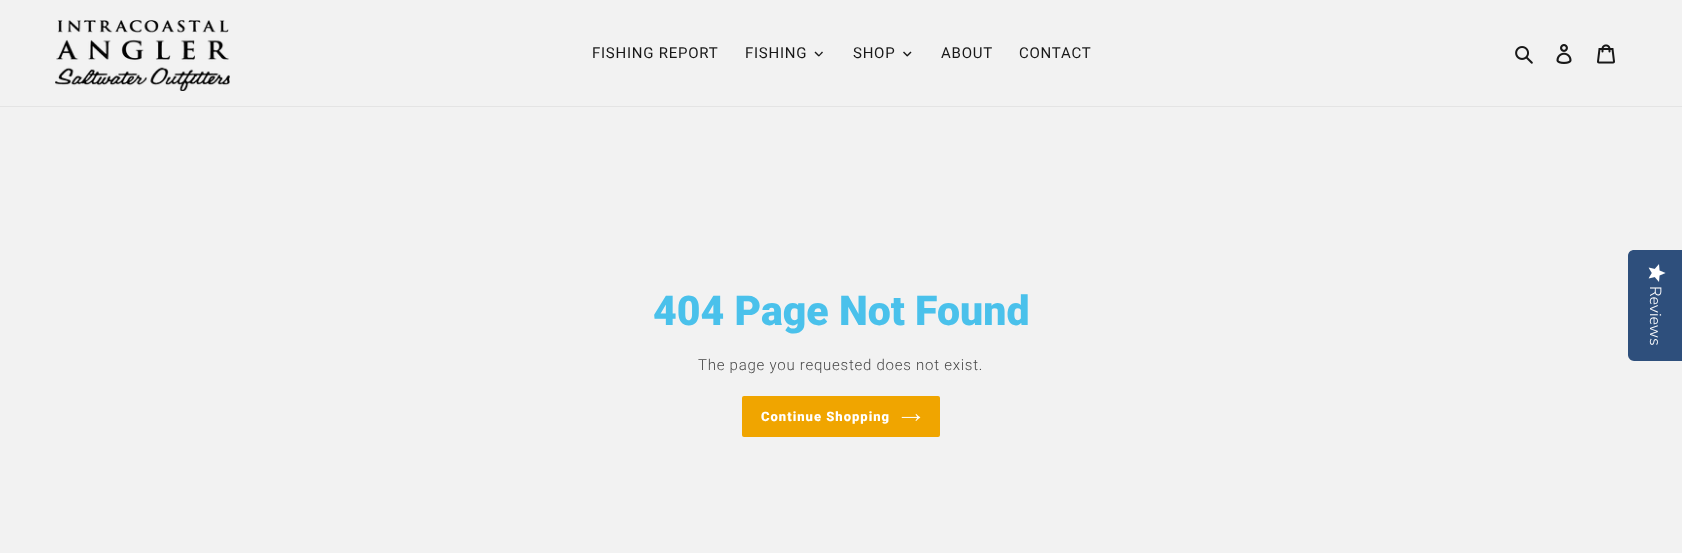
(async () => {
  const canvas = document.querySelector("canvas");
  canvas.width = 1682;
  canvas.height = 553;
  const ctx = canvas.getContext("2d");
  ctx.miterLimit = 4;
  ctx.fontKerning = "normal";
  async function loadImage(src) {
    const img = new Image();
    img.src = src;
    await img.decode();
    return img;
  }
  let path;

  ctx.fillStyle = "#f2f2f2";
  ctx.fillRect(0, 0, 1682, 553);
  ctx.fillStyle = "#e4e4e4";
  ctx.fillRect(0, 106, 1682, 1);
  ctx.drawImage(await loadImage("img/1.png"), 55, 20, 175, 71);
  ctx.fillStyle = "#181818";
  path = new Path2D("M822 51.5L823 52.5L819 56.5L818.5 55.5Z");
  ctx.fill(path);
  path = new Path2D("M815.5 51.5L819.5 55.5L818.5 56.5L814.5 52.5Z");
  ctx.fill(path);
  path = new Path2D("M910.5 51.5L911.5 52.5L907.5 56.5L906.5 55.5Z");
  ctx.fill(path);
  path = new Path2D("M904 51.5L908 55.5L907 56.5L903 52.5Z");
  ctx.fill(path);
  ctx.drawImage(await loadImage("img/2.png"), 1515, 46, 18, 18);
  ctx.drawImage(await loadImage("img/3.png"), 1556, 44, 16, 20);
  ctx.drawImage(await loadImage("img/4.png"), 1597, 44, 18, 20);
  ctx.fillStyle = "#f0a500";
  ctx.beginPath();
  ctx.roundRect(742, 396, 198, 41, 2);
  ctx.fill();
  ctx.drawImage(await loadImage("img/5.png"), 901, 413, 20, 8);
  ctx.fillStyle = "#2e4f7c";
  path = new Path2D("M1682 250V361H1634C1631 361 1628 358 1628 355V256C1628 252 1631 250 1634 250Z");
  ctx.fill(path);
  ctx.drawImage(await loadImage("img/6.png"), 1648, 264, 18, 18);
  ctx.letterSpacing = "0.75px";
  ctx.font = "15px Roboto";
  ctx.fillStyle = "#181818";
  for (const [text, x, y] of [
    ["FISHING REPORT", 592, 58],
    ["FISHING", 745, 58],
    ["SHOP", 853, 58],
    ["ABOUT", 941, 58],
    ["CONTACT", 1019, 58],
  ]) {
    ctx.fillText(text, x, y);
  }
  ctx.letterSpacing = "0px";
  ctx.font = "900 41px Roboto";
  ctx.fillStyle = "#4ac1eb";
  ctx.fillText("404 Page Not Found", 653, 325);
  ctx.letterSpacing = "0.75px";
  ctx.font = "300 15px Roboto";
  ctx.fillStyle = "#484848";
  ctx.fillText("The page you requested does not exist.", 698, 370);
  ctx.letterSpacing = "1px";
  ctx.font = "900 13px Roboto";
  ctx.fillStyle = "#ffffff";
  ctx.fillText("Continue Shopping", 761, 421);
  ctx.letterSpacing = "0px";
  ctx.font = "300 16px Nunito Sans";
  ctx.save();
  ctx.translate(1650, 286);
  ctx.rotate(90 * Math.PI / 180);
  ctx.fillText("Reviews", 0, 0);
  ctx.restore();
})();
